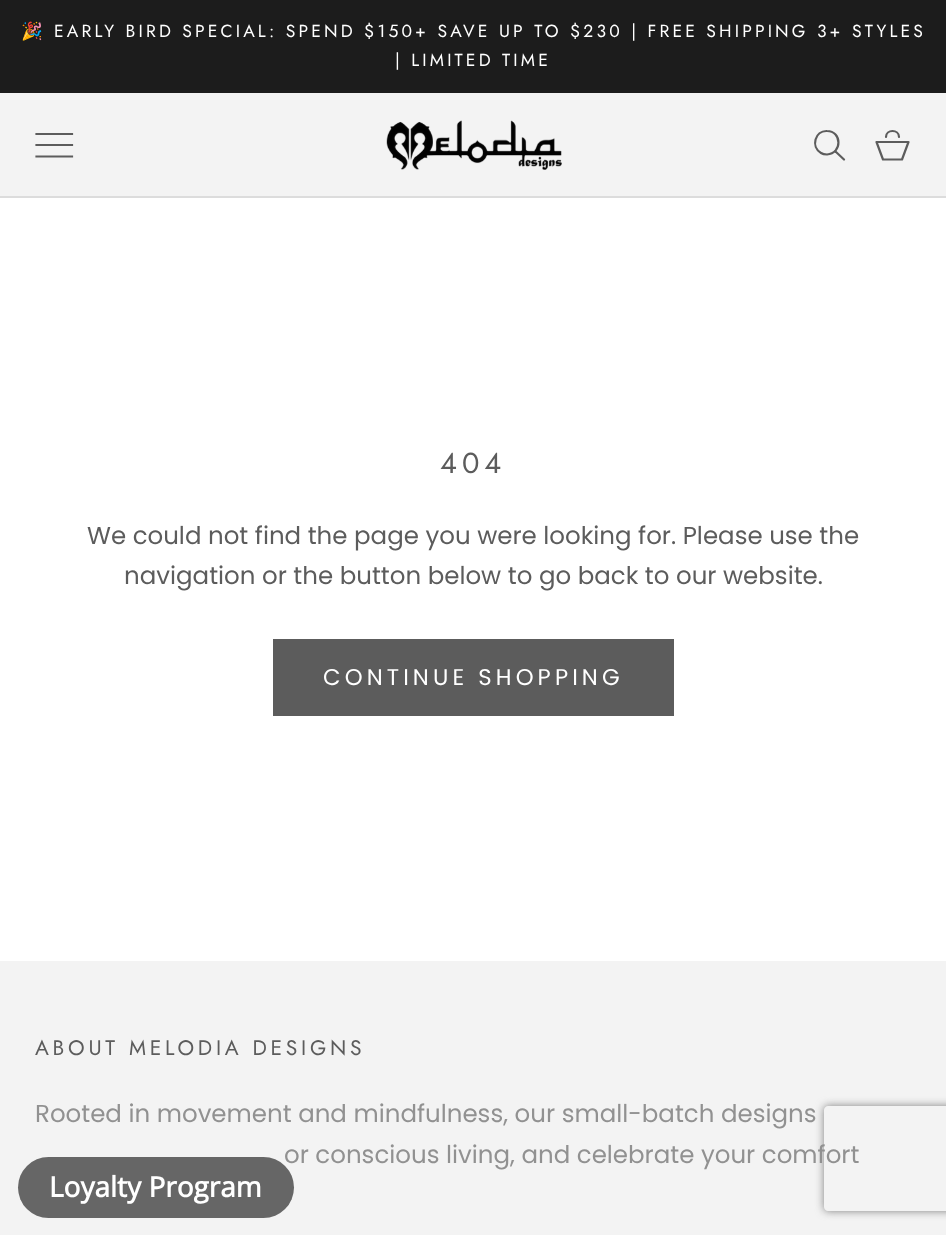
(async () => {
  const canvas = document.querySelector("canvas");
  canvas.width = 946;
  canvas.height = 1235;
  const ctx = canvas.getContext("2d");
  ctx.miterLimit = 4;
  ctx.fontKerning = "normal";
  async function loadImage(src) {
    const img = new Image();
    img.src = src;
    await img.decode();
    return img;
  }
  let path;

  ctx.fillStyle = "#ffffff";
  ctx.fillRect(0, 0, 946, 1235);
  for (const [x, y, w, h, color] of [
    [0, 0, 946, 93, "#1c1c1c"],
    [0, 93, 946, 103, "#f3f3f3"],
    [0, 196, 946, 2, "#dcdcdc"],
  ]) {
    ctx.fillStyle = color;
    ctx.fillRect(x, y, w, h);
  }
  path = new Path2D("M36.5 156.5H72M36.5 145H72M36.5 134H72");
  ctx.strokeStyle = "#5c5c5c";
  ctx.lineWidth = 2.2;
  ctx.lineCap = "square";
  ctx.stroke(path);
  ctx.drawImage(await loadImage("img/1.png"), 386, 120, 176, 50);
  path = new Path2D("M827 131C815 130.5 810.5 147 821 153C822.5 154 825 154.5 827 154.5C842.5 153.5 842 131 827 131Z");
  ctx.lineCap = "butt";
  ctx.stroke(path);
  path = new Path2D("M835.5 151.5L844 159.5");
  ctx.lineCap = "round";
  ctx.stroke(path);
  path = new Path2D("M876.5 142H908.5L902 159.5H883ZM899 137C899 129 886 129 886 137");
  ctx.lineJoin = "round";
  ctx.stroke(path);
  ctx.fillStyle = "#5c5c5c";
  ctx.beginPath();
  ctx.rect(274, 640, 399, 75);
  ctx.fill();
  ctx.lineWidth = 2;
  ctx.lineJoin = "miter";
  ctx.stroke();
  ctx.fillStyle = "#f3f3f3";
  ctx.fillRect(0, 961, 946, 274);
  ctx.save();
  path = new Path2D("M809 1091H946V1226H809ZM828 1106H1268C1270 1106 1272 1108 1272 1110V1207C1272 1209 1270 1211 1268 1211H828C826 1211 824 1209 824 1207V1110C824 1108 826 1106 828 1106Z");
  ctx.clip(path, "evenodd");
  ctx.fillStyle = "#808080";
  ctx.filter = "blur(4.5px)";
  ctx.beginPath();
  ctx.roundRect(824, 1106, 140, 105, 4);
  ctx.fill();
  ctx.filter = "none";
  ctx.restore();
  ctx.letterSpacing = "3.15px";
  ctx.font = "17.5px Noto Color Emoji";
  ctx.fillStyle = "#ffffff";
  ctx.fillText("🎉", 21, 37);
  ctx.font = "17.5px Jost";
  ctx.fillText("EARLY BIRD SPECIAL: SPEND $150+ SAVE UP TO $230 | FREE SHIPPING 3+ STYLES", 54, 37);
  ctx.fillText("| LIMITED TIME", 395, 66);
  ctx.letterSpacing = "5px";
  ctx.font = "29px Jost";
  ctx.fillStyle = "#5c5c5c";
  ctx.fillText("404", 440, 473);
  ctx.letterSpacing = "0px";
  ctx.font = "24.5px Poppins";
  ctx.fillText("We could not find the page you were looking for. Please use the", 87, 544);
  ctx.fillText("navigation or the button below to go back to our website.", 124, 584);
  ctx.letterSpacing = "4.1px";
  ctx.font = "22.75px Poppins";
  ctx.fillStyle = "#ffffff";
  ctx.fillText("CONTINUE SHOPPING", 323, 685);
  ctx.letterSpacing = "3.75px";
  ctx.font = "21px Jost";
  ctx.fillStyle = "#5c5c5c";
  ctx.fillText("ABOUT MELODIA DESIGNS", 35, 1055);
  ctx.letterSpacing = "0px";
  ctx.font = "24.5px Poppins";
  ctx.fillStyle = "#919191";
  ctx.fillText("Rooted in movement and mindfulness, our small-batch designs", 35, 1122);
  ctx.fillText("or conscious living, and celebrate your comfort", 284, 1163);
  ctx.fillStyle = "#666666";
  ctx.beginPath();
  ctx.roundRect(18, 1157, 276, 61, 30.5);
  ctx.fill();
  ctx.font = "bold 28px Open Sans";
  ctx.fillStyle = "#ffffff";
  ctx.fillText("Loyalty Program", 49, 1197);
})();
